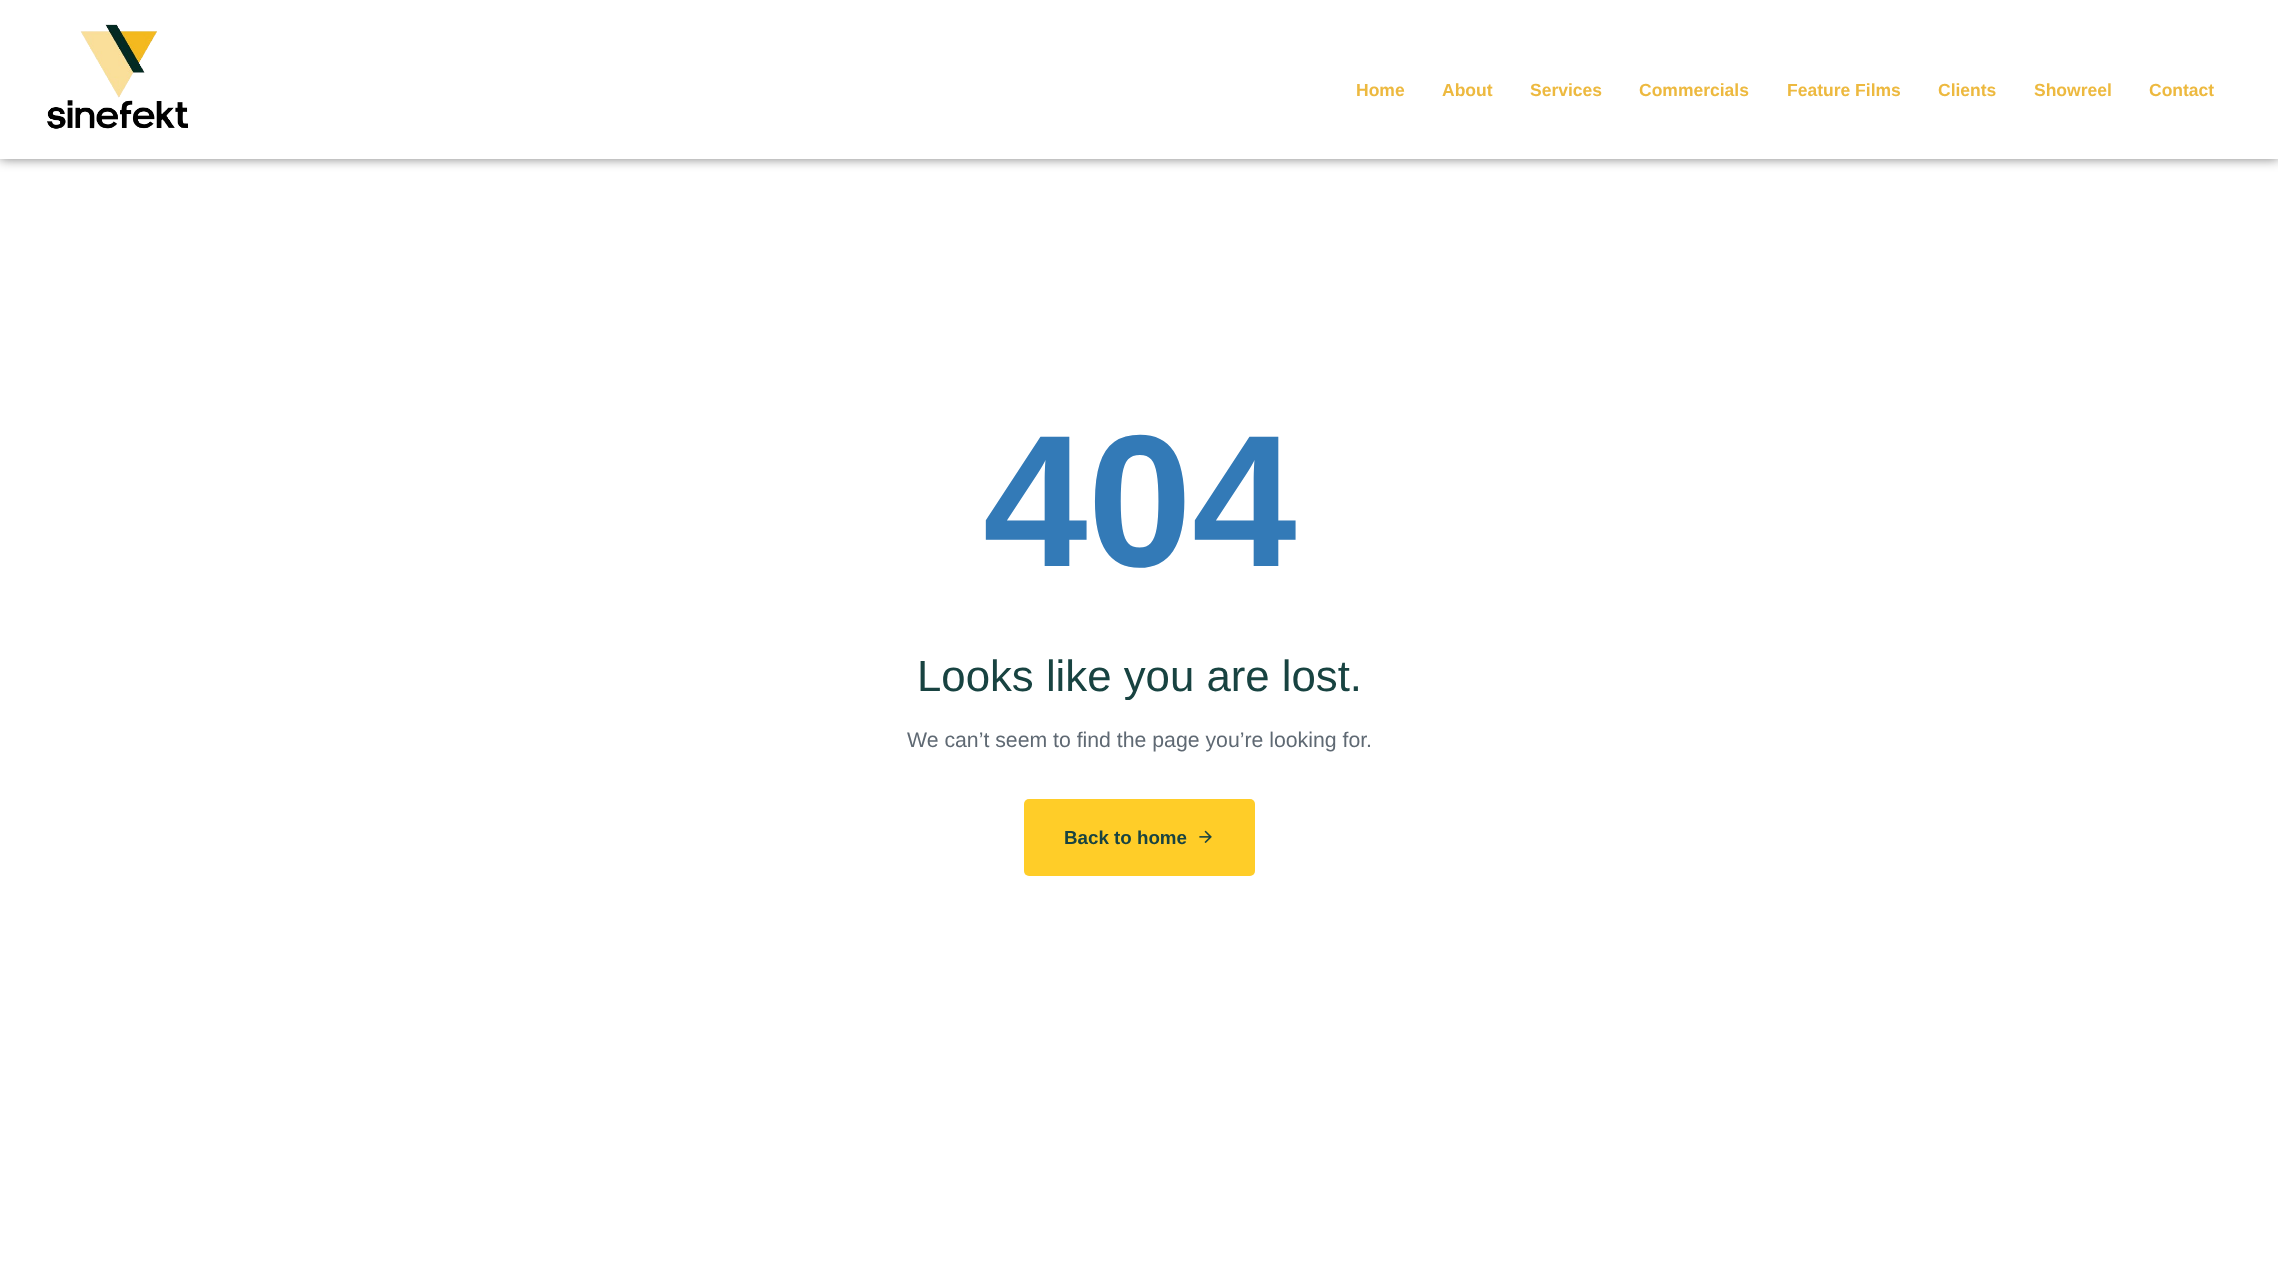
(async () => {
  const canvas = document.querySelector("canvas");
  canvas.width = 2278;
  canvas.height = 1275;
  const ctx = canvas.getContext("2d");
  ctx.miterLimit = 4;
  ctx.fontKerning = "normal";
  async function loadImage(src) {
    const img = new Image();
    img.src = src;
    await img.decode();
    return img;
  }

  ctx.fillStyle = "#ffffff";
  ctx.fillRect(0, 0, 2278, 1275);
  ctx.fillStyle = "rgba(0, 0, 0, 0.5)";
  ctx.filter = "blur(6px)";
  ctx.beginPath();
  ctx.rect(0, 0, 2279, 159);
  ctx.fill();
  ctx.filter = "none";
  ctx.fillStyle = "#ffffff";
  ctx.fillRect(0, 0, 2278, 159);
  ctx.drawImage(await loadImage("img/1.png"), 47, 24, 141, 105);
  ctx.fillStyle = "#ffcd28";
  ctx.beginPath();
  ctx.roundRect(1024, 799, 231, 77, 5);
  ctx.fill();
  ctx.drawImage(await loadImage("img/2.png"), 1199, 830, 13, 13);
  ctx.font = "bold 17.5px Liberation Sans";
  ctx.fillStyle = "#edb93f";
  for (const [text, x, y] of [
    ["Home", 1356, 96],
    ["About", 1442, 96],
    ["Services", 1530, 96],
    ["Commercials", 1639, 96],
    ["Feature Films", 1787, 96],
    ["Clients", 1938, 96],
    ["Showreel", 2034, 96],
    ["Contact", 2149, 96],
  ]) {
    ctx.fillText(text, x, y);
  }
  ctx.font = "bold 188px Liberation Sans";
  ctx.fillStyle = "#337ab7";
  ctx.fillText("404", 983, 566);
  ctx.font = "43.75px Liberation Sans";
  ctx.fillStyle = "#184341";
  ctx.fillText("Looks like you are lost.", 917, 691);
  ctx.font = "21.25px Liberation Sans";
  ctx.fillStyle = "#5f6973";
  ctx.fillText("We can’t seem to find the page you’re looking for.", 907, 747);
  ctx.font = "bold 18.75px Liberation Sans";
  ctx.fillStyle = "#184341";
  ctx.fillText("Back to home", 1064, 844);
})();
